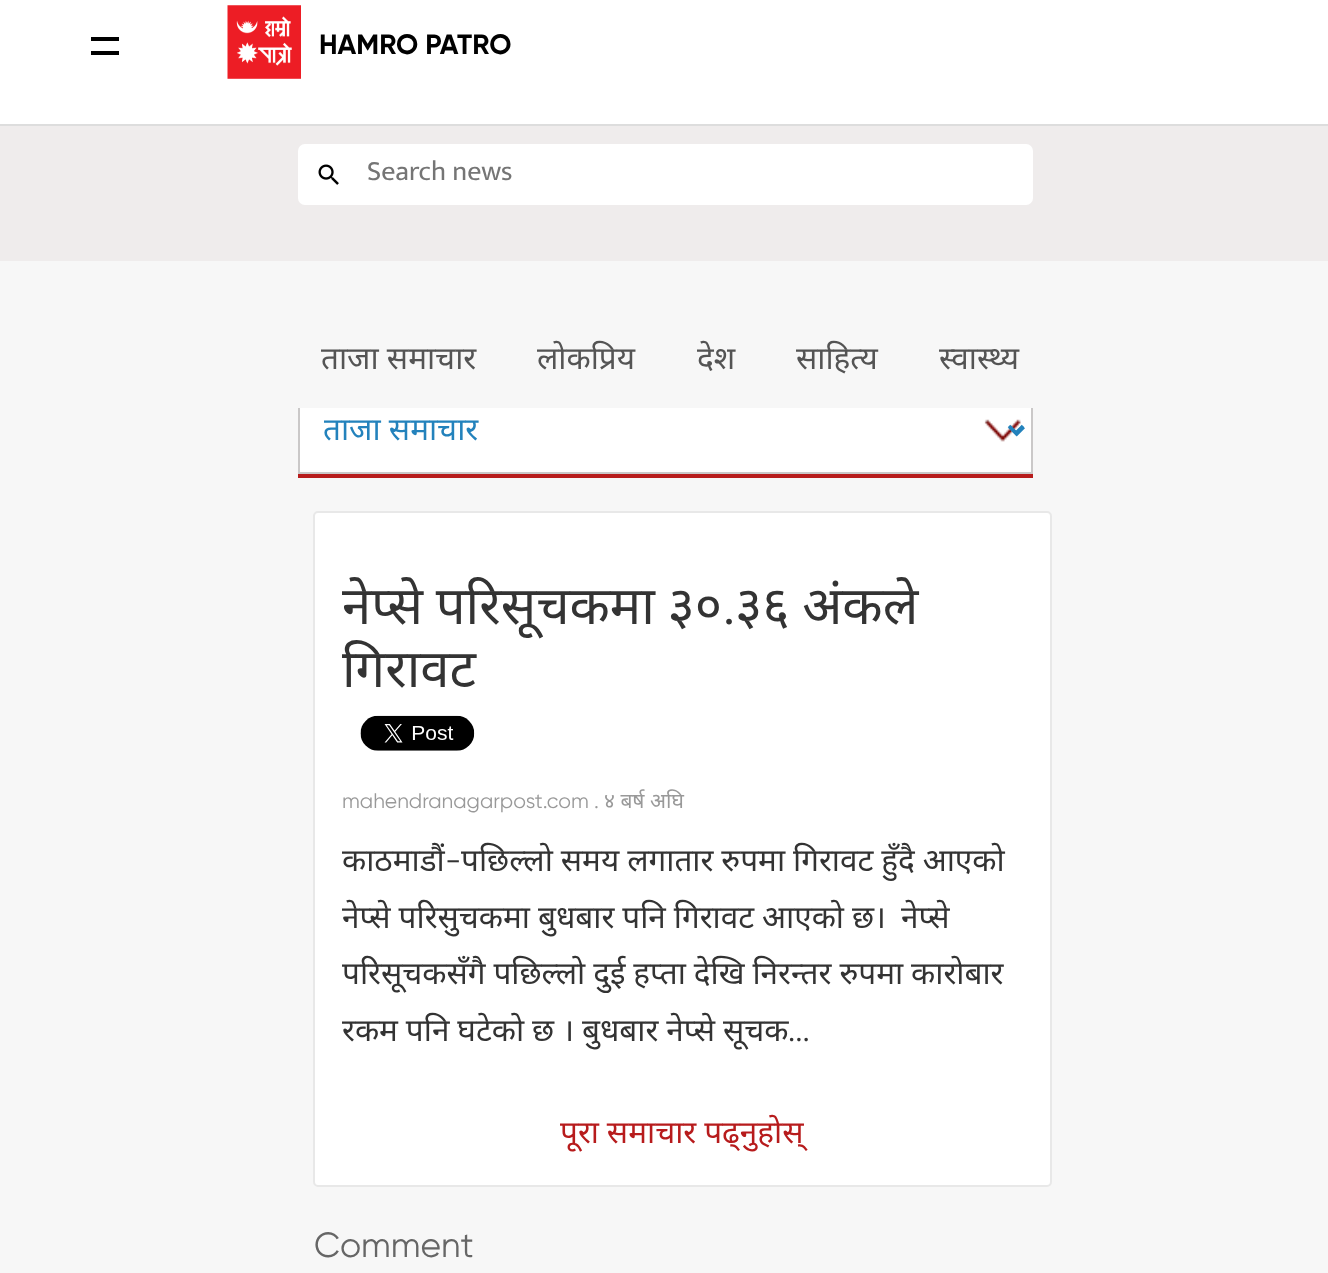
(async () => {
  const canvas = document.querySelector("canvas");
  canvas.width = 1328;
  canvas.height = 1273;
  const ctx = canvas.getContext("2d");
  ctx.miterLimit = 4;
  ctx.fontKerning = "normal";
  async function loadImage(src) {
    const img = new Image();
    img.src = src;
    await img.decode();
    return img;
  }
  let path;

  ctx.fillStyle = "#efecec";
  ctx.fillRect(0, 0, 1328, 1273);
  for (const [x, y, w, h, color] of [
    [0, 0, 1328, 124, "#ffffff"],
    [0, 124, 1328, 2, "#dddddd"],
    [91, 37, 28, 4, "#000000"],
    [91, 51, 28, 4, "#000000"],
  ]) {
    ctx.fillStyle = color;
    ctx.fillRect(x, y, w, h);
  }
  ctx.drawImage(await loadImage("img/1.png"), 227, 5, 74, 74);
  ctx.fillStyle = "#ffffff";
  ctx.beginPath();
  ctx.roundRect(298, 144, 735, 61, 7);
  ctx.fill();
  ctx.drawImage(await loadImage("img/2.png"), 318, 164, 21, 21);
  for (const [x, y, w, h, color] of [
    [0, 261, 1328, 1012, "#f7f7f7"],
    [298, 474, 735, 4, "#b71c1c"],
    [300, 408, 731, 64, "#ffffff"],
  ]) {
    ctx.fillStyle = color;
    ctx.fillRect(x, y, w, h);
  }
  ctx.drawImage(await loadImage("img/3.png"), 984, 419, 41, 23);
  ctx.strokeStyle = "#cac8c8";
  ctx.lineWidth = 2;
  ctx.strokeRect(299, 388, 733, 85);
  ctx.fillStyle = "#f7f7f7";
  ctx.fillRect(298, 387, 735, 21);
  path = new Path2D("M1009 426L1016 433L1023 426");
  ctx.strokeStyle = "#2382bc";
  ctx.lineWidth = 3.5;
  ctx.stroke(path);
  ctx.beginPath();
  ctx.roundRect(314, 512, 737, 674, 4);
  ctx.strokeStyle = "#e8e8e8";
  ctx.lineWidth = 2;
  ctx.stroke();
  ctx.fillStyle = "#ffffff";
  ctx.beginPath();
  ctx.roundRect(315, 513, 735, 672, 4);
  ctx.fill();
  ctx.drawImage(await loadImage("img/4.png"), 360, 715, 115, 36);
  ctx.font = "bold 28px Gilroy";
  ctx.fillStyle = "#000000";
  ctx.fillText("HAMRO PATRO", 319, 54);
  ctx.font = "28px Ek Mukta";
  ctx.fillStyle = "#757575";
  ctx.fillText("Search news", 367, 180);
  ctx.font = "31.5px Noto Sans";
  ctx.fillStyle = "#545454";
  for (const [text, x, y] of [
    ["ताजा समाचार", 321, 369],
    ["लोकप्रिय", 537, 369],
    ["देश", 697, 369],
    ["साहित्य", 796, 369],
    ["स्वास्थ्य", 939, 369],
  ]) {
    ctx.fillText(text, x, y);
  }
  ctx.save();
  ctx.beginPath();
  ctx.rect(324, 411, 679, 39);
  ctx.clip();
  ctx.fillStyle = "#2382bc";
  ctx.fillText("ताजा समाचार", 323, 440);
  ctx.restore();
  ctx.wordSpacing = "-1px";
  ctx.font = "52.5px Noto Sans";
  ctx.fillStyle = "#333333";
  ctx.fillText("नेप्से परिसूचकमा ३०", 342, 624);
  ctx.wordSpacing = "0px";
  ctx.font = "52.5px Gilroy";
  ctx.fillText(".", 723, 624);
  ctx.wordSpacing = "-1px";
  ctx.font = "52.5px Noto Sans";
  ctx.fillText("३६ अंकले", 735, 624);
  ctx.wordSpacing = "0px";
  ctx.fillText("गिरावट", 342, 687);
  ctx.font = "21px Gilroy";
  ctx.fillStyle = "#999999";
  ctx.fillText("mahendranagarpost.com .", 342, 808);
  ctx.font = "21px Noto Sans";
  ctx.fillText("४ बर्ष अघि", 604, 808);
  ctx.font = "31.5px Noto Sans";
  ctx.fillStyle = "#333333";
  ctx.fillText("काठमाडौं", 342, 871);
  ctx.font = "31.5px Gilroy";
  ctx.fillText("-", 445, 871);
  ctx.wordSpacing = "-0.25px";
  ctx.font = "31.5px Noto Sans";
  ctx.fillText("पछिल्लो समय लगातार रुपमा गिरावट हुँदै आएको", 461, 871);
  ctx.fillText("नेप्से परिसुचकमा बुधबार पनि गिरावट आएको छ।", 342, 928);
  ctx.wordSpacing = "0px";
  ctx.fillText("नेप्से", 901, 928);
  ctx.wordSpacing = "-0.25px";
  ctx.fillText("परिसूचकसँगै पछिल्लो दुई हप्ता देखि निरन्तर रुपमा कारोबार", 342, 984);
  ctx.fillText("रकम पनि घटेको छ । बुधबार नेप्से सूचक", 342, 1041);
  ctx.wordSpacing = "0px";
  ctx.font = "31.5px Gilroy";
  ctx.fillText("...", 788, 1041);
  ctx.wordSpacing = "-0.25px";
  ctx.font = "31.5px Noto Sans";
  ctx.fillStyle = "#b71b1c";
  ctx.fillText("पूरा समाचार पढ्नुहोस्", 560, 1143);
  ctx.wordSpacing = "0px";
  ctx.font = "35px Gilroy";
  ctx.fillStyle = "#666666";
  ctx.fillText("Comment", 314, 1257);
})();
